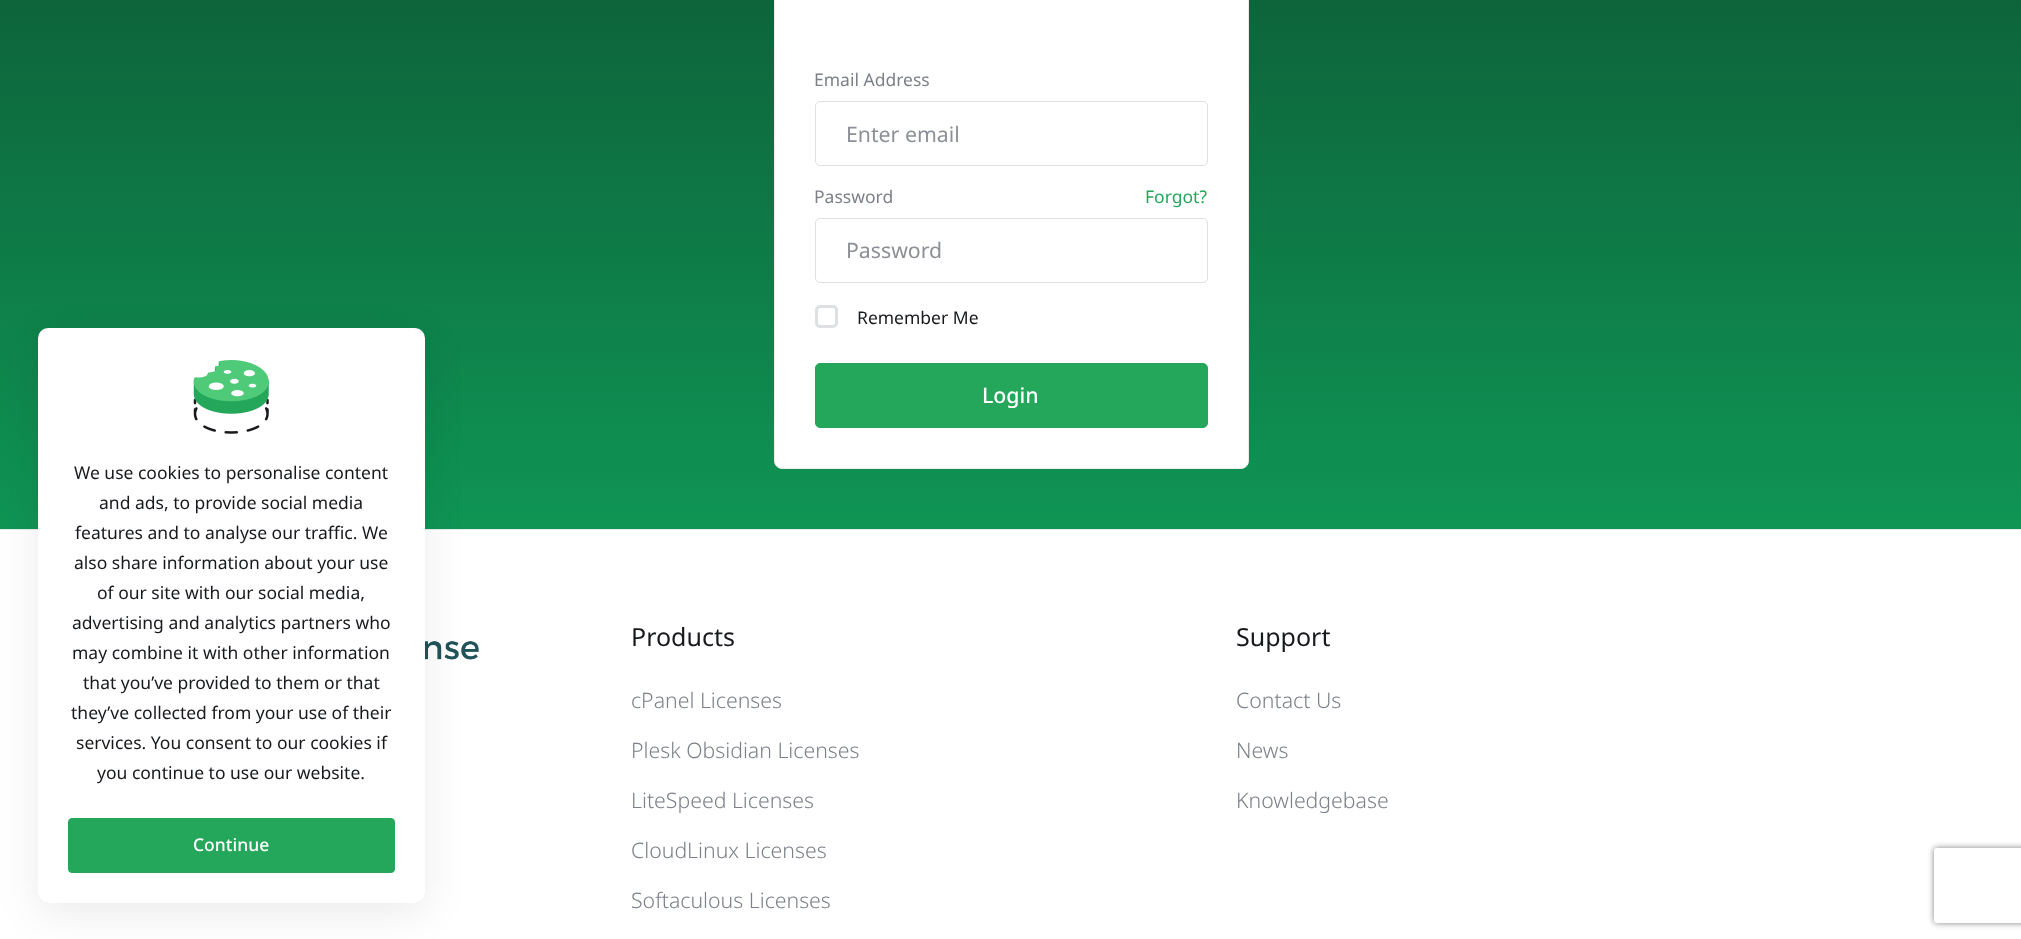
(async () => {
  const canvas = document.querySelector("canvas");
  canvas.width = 2021;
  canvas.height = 939;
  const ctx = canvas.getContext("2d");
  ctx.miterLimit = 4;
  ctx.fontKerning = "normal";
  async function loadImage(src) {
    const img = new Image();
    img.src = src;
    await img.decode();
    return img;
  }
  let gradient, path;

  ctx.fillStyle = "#ffffff";
  ctx.fillRect(0, 0, 2021, 939);
  gradient = ctx.createLinearGradient(1011, 529, 1011, -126);
  gradient.addColorStop(0, "#0f9555");
  gradient.addColorStop(1, "#0d5935");
  ctx.fillStyle = gradient;
  ctx.fillRect(0, 0, 2021, 529);
  ctx.fillStyle = "#e9eaec";
  ctx.fillRect(0, 529, 2021, 1);
  ctx.drawImage(await loadImage("img/2.png"), 425, 641, 54, 19);
  ctx.fillStyle = "rgba(0, 0, 0, 0.08)";
  ctx.filter = "blur(20px)";
  ctx.beginPath();
  ctx.roundRect(38, 338, 387, 575, 10);
  ctx.fill();
  ctx.filter = "none";
  ctx.fillStyle = "rgba(0, 0, 0, 0.12)";
  ctx.filter = "blur(0.5px)";
  ctx.beginPath();
  ctx.roundRect(38, 328, 387, 575, 10);
  ctx.fill();
  ctx.filter = "none";
  ctx.fillStyle = "#ffffff";
  ctx.beginPath();
  ctx.roundRect(38, 328, 387, 575, 10);
  ctx.fill();
  ctx.drawImage(await loadImage("img/1.png"), 193, 360, 76, 74);
  ctx.fillStyle = "#25a75b";
  ctx.beginPath();
  ctx.roundRect(68.5, 818.5, 326, 54, 3.5);
  ctx.fill();
  ctx.strokeStyle = "#25a75b";
  ctx.stroke();
  ctx.fillStyle = "#ffffff";
  ctx.beginPath();
  ctx.roundRect(774.5, -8.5, 474, 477, 7.5);
  ctx.fill();
  ctx.strokeStyle = "#e9eaec";
  ctx.stroke();
  ctx.beginPath();
  ctx.roundRect(815.5, 101.5, 392, 64, 4.5);
  ctx.strokeStyle = "#dee0e3";
  ctx.stroke();
  ctx.beginPath();
  ctx.roundRect(815.5, 218.5, 392, 64, 4.5);
  ctx.stroke();
  ctx.beginPath();
  ctx.roundRect(816.5, 306.5, 20, 20, 3.5);
  ctx.lineWidth = 3;
  ctx.stroke();
  ctx.fillStyle = "#25a75b";
  ctx.beginPath();
  ctx.roundRect(815.5, 363.5, 392, 64, 4.5);
  ctx.fill();
  ctx.strokeStyle = "#25a75b";
  ctx.lineWidth = 1;
  ctx.stroke();
  ctx.save();
  path = new Path2D("M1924 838H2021V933H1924ZM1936.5 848H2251.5C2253 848 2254 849 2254 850.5V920.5C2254 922 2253 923 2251.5 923H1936.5C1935 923 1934 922 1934 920.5V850.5C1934 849 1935 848 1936.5 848Z");
  ctx.clip(path, "evenodd");
  ctx.fillStyle = "#808080";
  ctx.filter = "blur(3px)";
  ctx.beginPath();
  ctx.roundRect(1934, 848, 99, 75, 2.5);
  ctx.fill();
  ctx.filter = "none";
  ctx.restore();
  ctx.font = "17.5px Noto Sans";
  ctx.fillStyle = "#17191c";
  for (const [text, x, y] of [
    ["We use cookies to personalise content", 74, 479],
    ["and ads, to provide social media", 99, 509],
    ["features and to analyse our traffic. We", 75, 539],
    ["also share information about your use", 74, 569],
    ["of our site with our social media,", 97, 599],
    ["advertising and analytics partners who", 72, 629],
    ["may combine it with other information", 72, 659],
    ["that you’ve provided to them or that", 83, 689],
    ["they’ve collected from your use of their", 71, 719],
    ["services. You consent to our cookies if", 76, 749],
    ["you continue to use our website.", 97, 779],
  ]) {
    ctx.fillText(text, x, y);
  }
  ctx.font = "500 17.5px Noto Sans";
  ctx.fillStyle = "#ffffff";
  ctx.fillText("Continue", 193, 851);
  ctx.font = "17.5px Noto Sans";
  ctx.fillStyle = "#7c8088";
  ctx.fillText("Email Address", 814, 86);
  ctx.font = "21.25px Noto Sans";
  ctx.fillStyle = "#8c8f96";
  ctx.fillText("Enter email", 846, 142);
  ctx.font = "17.5px Noto Sans";
  ctx.fillStyle = "#7c8088";
  ctx.fillText("Password", 814, 203);
  ctx.fillStyle = "#25a75b";
  ctx.fillText("Forgot?", 1145, 203);
  ctx.font = "21.25px Noto Sans";
  ctx.fillStyle = "#8c8f96";
  ctx.fillText("Password", 846, 258);
  ctx.font = "17.5px Noto Sans";
  ctx.fillStyle = "#17191c";
  ctx.fillText("Remember Me", 857, 324);
  ctx.font = "500 21.25px Noto Sans";
  ctx.fillStyle = "#ffffff";
  ctx.fillText("Login", 982, 403);
  ctx.font = "25px Noto Sans";
  ctx.fillStyle = "#17191c";
  ctx.fillText("Products", 631, 646);
  ctx.font = "300 21.25px Noto Sans";
  ctx.fillStyle = "#7c8088";
  for (const [text, x, y] of [
    ["cPanel Licenses", 631, 708],
    ["Plesk Obsidian Licenses", 631, 758],
    ["LiteSpeed Licenses", 631, 808],
    ["CloudLinux Licenses", 631, 858],
    ["Softaculous Licenses", 631, 908],
  ]) {
    ctx.fillText(text, x, y);
  }
  ctx.font = "25px Noto Sans";
  ctx.fillStyle = "#17191c";
  ctx.fillText("Support", 1236, 646);
  ctx.font = "300 21.25px Noto Sans";
  ctx.fillStyle = "#7c8088";
  for (const [text, x, y] of [
    ["Contact Us", 1236, 708],
    ["News", 1236, 758],
    ["Knowledgebase", 1236, 808],
  ]) {
    ctx.fillText(text, x, y);
  }
})();
